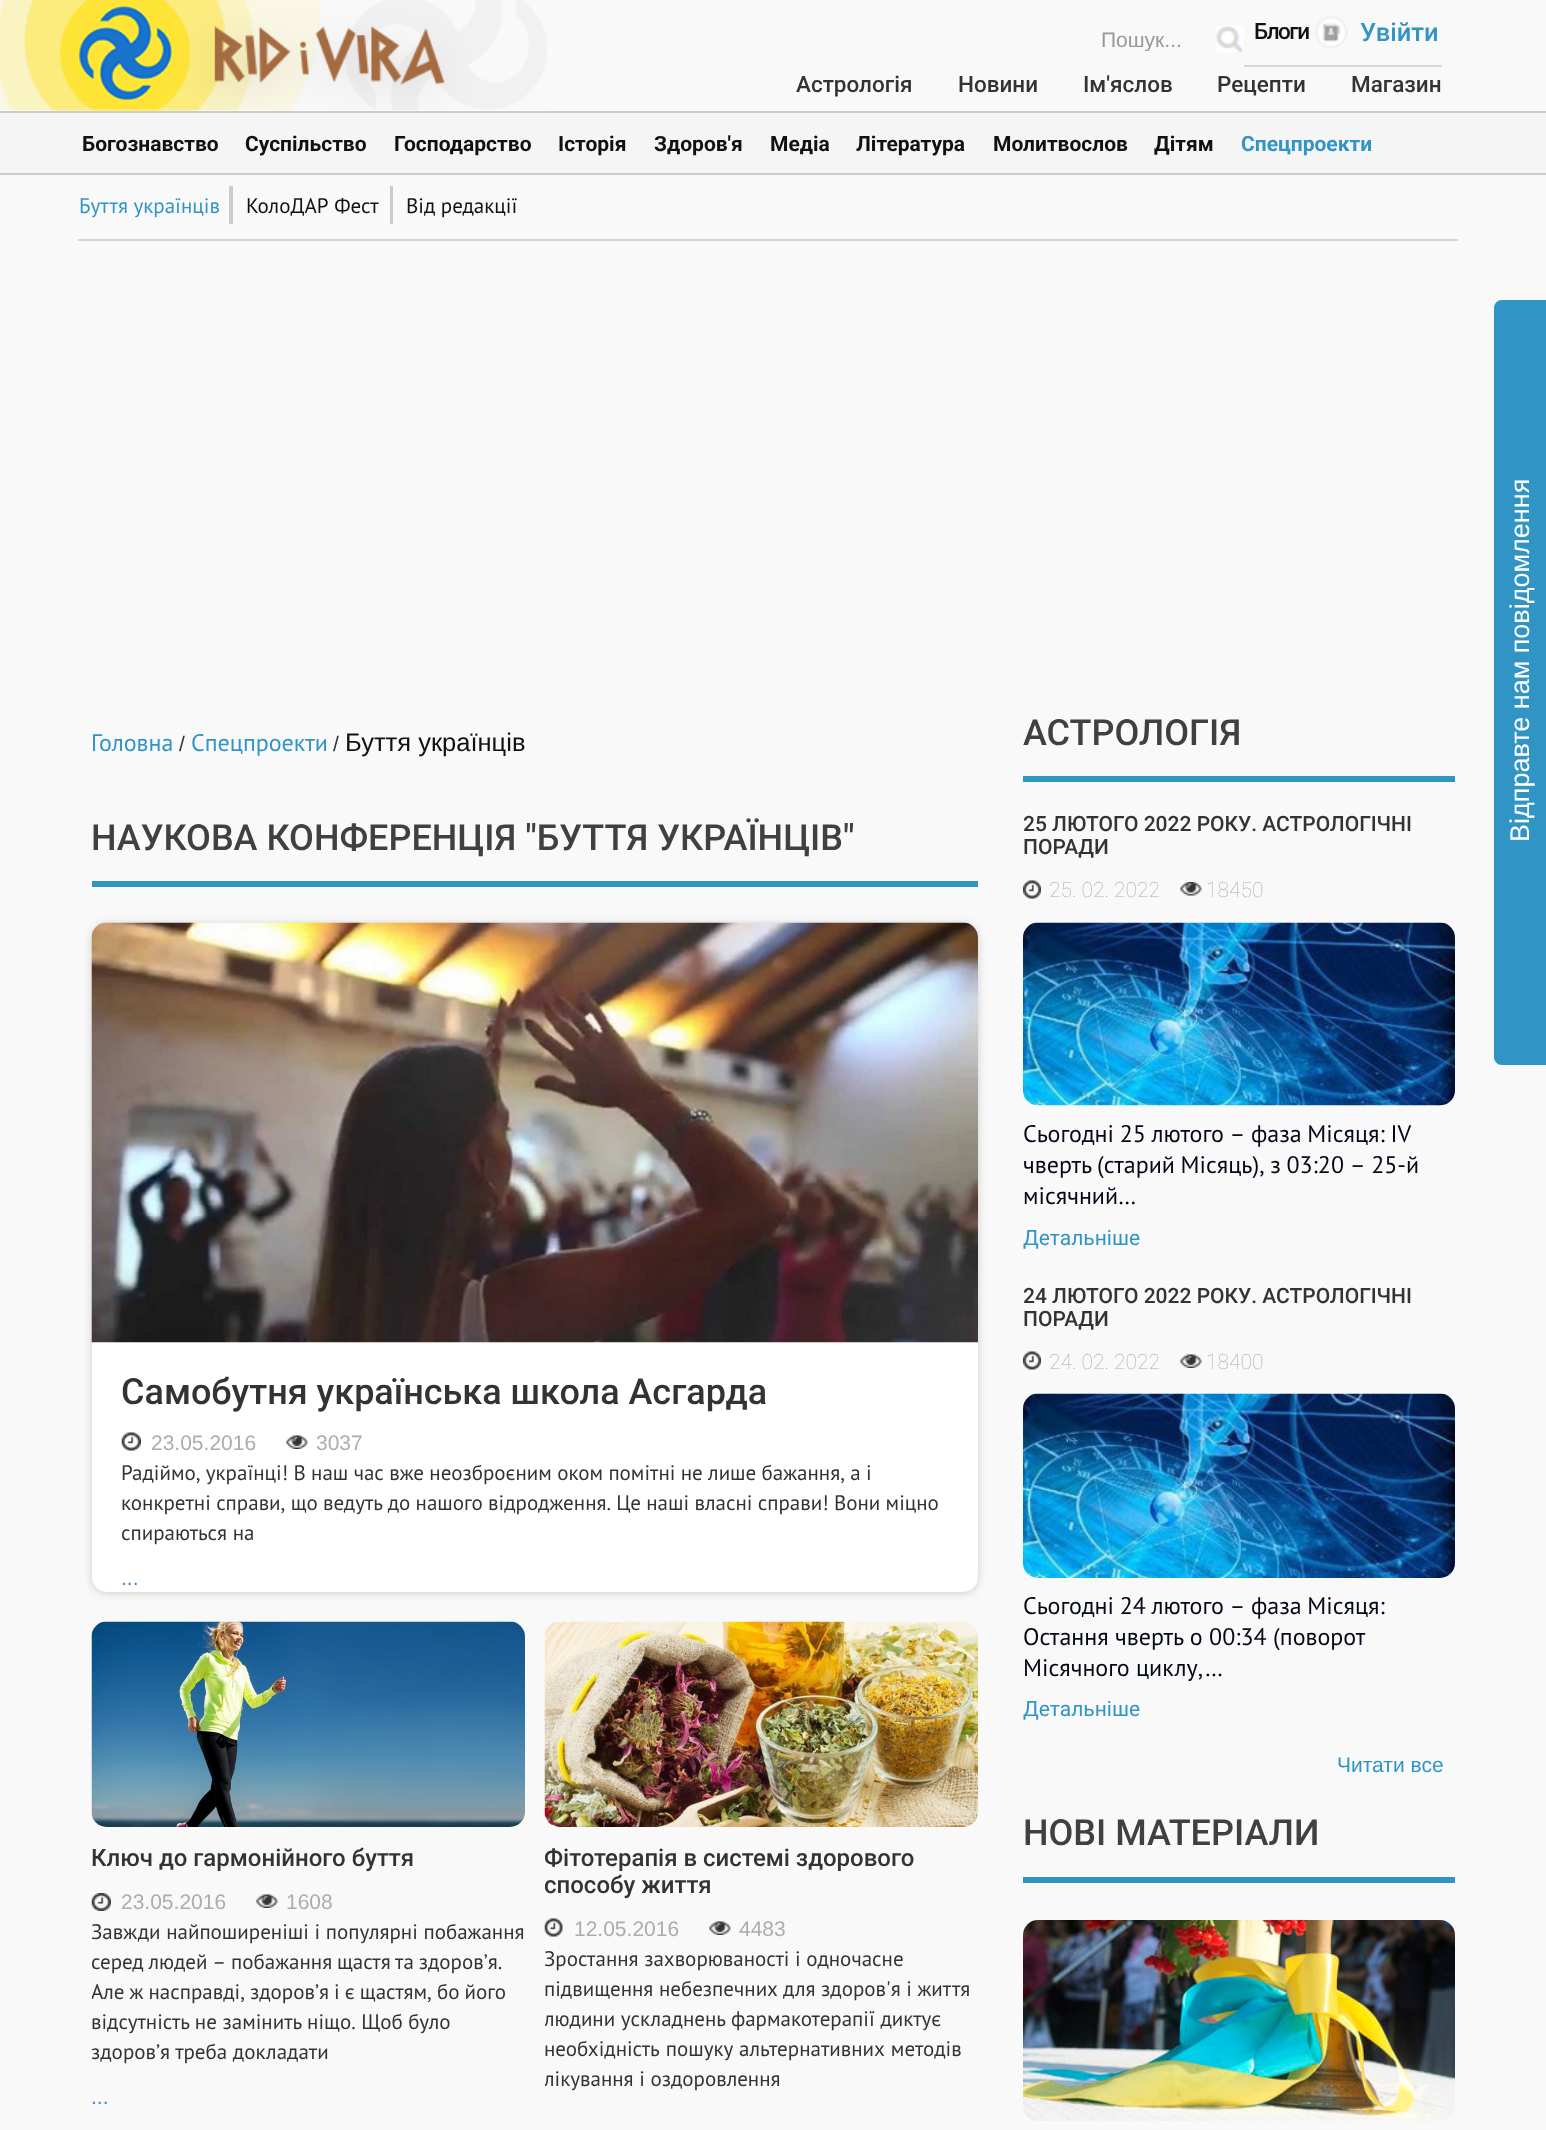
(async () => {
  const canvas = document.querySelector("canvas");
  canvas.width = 1546;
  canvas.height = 2130;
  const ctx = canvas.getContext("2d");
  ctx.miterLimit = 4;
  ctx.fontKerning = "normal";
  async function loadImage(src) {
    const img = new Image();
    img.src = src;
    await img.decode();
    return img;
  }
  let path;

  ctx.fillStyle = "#f9f9f9";
  ctx.fillRect(0, 0, 1546, 2130);
  ctx.drawImage(await loadImage("img/1.png"), 0, 0, 547, 111);
  ctx.drawImage(await loadImage("img/2.png"), 1216, 26, 28, 27);
  ctx.fillStyle = "#d7d7d7";
  ctx.fillRect(1244, 65, 198, 2);
  ctx.drawImage(await loadImage("img/3.png"), 1315, 16, 32, 32);
  for (const [x, y, w, h, color] of [
    [0, 113, 1546, 60, "#f5f5f5"],
    [0, 111, 1546, 2, "#cccccc"],
    [0, 173, 1546, 2, "#cccccc"],
    [78, 239, 1380, 2, "#d5d5d5"],
    [229, 186, 4, 38, "#cccccc"],
    [390, 186, 3, 38, "#cccccc"],
  ]) {
    ctx.fillStyle = color;
    ctx.fillRect(x, y, w, h);
  }
  ctx.fillStyle = "#3095c5";
  path = new Path2D("M1502 300H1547V1065H1502C1497.5 1065 1494 1061.5 1494 1057V308C1494 303.5 1497.5 300 1502 300Z");
  ctx.fill(path);
  ctx.fillRect(92, 881, 886, 6);
  ctx.fillStyle = "#cccccc";
  ctx.filter = "blur(4px)";
  ctx.beginPath();
  ctx.roundRect(92, 924, 886, 669, 15);
  ctx.fill();
  ctx.filter = "none";
  ctx.fillStyle = "#ffffff";
  ctx.beginPath();
  ctx.roundRect(92, 923, 886, 669, 15);
  ctx.fill();
  ctx.drawImage(await loadImage("img/4.png"), 91, 922, 887, 421);
  ctx.drawImage(await loadImage("img/5.png"), 121, 1432, 20, 19);
  ctx.drawImage(await loadImage("img/6.png"), 286, 1435, 22, 14);
  ctx.drawImage(await loadImage("img/7.png"), 91, 1621, 434, 206);
  ctx.drawImage(await loadImage("img/8.png"), 91, 1893, 20, 18);
  ctx.drawImage(await loadImage("img/9.png"), 256, 1894, 22, 14);
  ctx.drawImage(await loadImage("img/10.png"), 544, 1621, 434, 206);
  ctx.drawImage(await loadImage("img/11.png"), 544, 1918, 19, 19);
  ctx.drawImage(await loadImage("img/12.png"), 709, 1921, 22, 14);
  ctx.fillStyle = "#3095c5";
  ctx.fillRect(1023, 776, 432, 6);
  ctx.drawImage(await loadImage("img/13.png"), 1023, 880, 18, 19);
  ctx.drawImage(await loadImage("img/14.png"), 1180, 882, 22, 14);
  ctx.drawImage(await loadImage("img/15.png"), 1023, 922, 432, 184);
  ctx.drawImage(await loadImage("img/13.png"), 1023, 1351, 18, 19);
  ctx.drawImage(await loadImage("img/12.png"), 1180, 1354, 22, 14);
  ctx.drawImage(await loadImage("img/16.png"), 1023, 1393, 432, 185);
  ctx.fillRect(1023, 1877, 432, 6);
  ctx.drawImage(await loadImage("img/17.png"), 1023, 1920, 432, 201);
  ctx.save();
  ctx.beginPath();
  ctx.rect(917, 27, 265, 24);
  ctx.clip();
  ctx.font = "21px Liberation Sans";
  ctx.fillStyle = "#999999";
  ctx.fillText("Пошук...", 1101, 47);
  ctx.restore();
  ctx.letterSpacing = "-1.5px";
  ctx.font = "500 22.5px Roboto";
  ctx.fillStyle = "#111111";
  ctx.fillText("Блоги", 1254, 39);
  ctx.letterSpacing = "0px";
  ctx.font = "500 25.5px Roboto";
  ctx.fillStyle = "#3095c5";
  ctx.fillText("Увійти", 1360, 41);
  ctx.font = "500 22.5px Roboto";
  ctx.fillStyle = "#333333";
  for (const [text, x, y] of [
    ["Астрологія", 796, 92],
    ["Новини", 958, 92],
    ["Ім'яслов", 1083, 92],
    ["Рецепти", 1217, 92],
    ["Магазин", 1351, 92],
  ]) {
    ctx.fillText(text, x, y);
  }
  ctx.font = "bold 21px Roboto";
  ctx.fillStyle = "#3095c5";
  ctx.fillText("Спецпроекти", 1241, 151);
  ctx.font = "21px PT Sans";
  ctx.fillText("Буття українців", 79, 213);
  ctx.wordSpacing = "1px";
  ctx.fillStyle = "#111111";
  ctx.fillText("КолоДАР Фест", 246, 213);
  ctx.wordSpacing = "0px";
  ctx.fillText("Від редакції", 406, 213);
  ctx.font = "bold 21px Roboto";
  for (const [text, x, y] of [
    ["Богознавство", 82, 151],
    ["Суспільство", 245, 151],
    ["Господарство", 394, 151],
    ["Історія", 558, 151],
    ["Здоров'я", 654, 151],
    ["Медіа", 770, 151],
    ["Література", 856, 151],
    ["Молитвослов", 993, 151],
    ["Дітям", 1154, 151],
  ]) {
    ctx.fillText(text, x, y);
  }
  ctx.font = "27px Liberation Sans";
  ctx.fillStyle = "#ffffff";
  ctx.save();
  ctx.translate(1529, 842);
  ctx.rotate(-90 * Math.PI / 180);
  ctx.fillText("Відправте нам повідомлення", 0, 0);
  ctx.restore();
  ctx.font = "24px PT Sans";
  ctx.fillStyle = "#3095c5";
  ctx.fillText("Головна", 91, 751);
  ctx.font = "21px Liberation Sans";
  ctx.fillStyle = "#333333";
  ctx.fillText("/", 179, 751);
  ctx.font = "24px PT Sans";
  ctx.fillStyle = "#3095c5";
  ctx.fillText("Спецпроекти", 191, 751);
  ctx.font = "21px Liberation Sans";
  ctx.fillStyle = "#333333";
  ctx.fillText("/", 333, 751);
  ctx.font = "25.5px Liberation Sans";
  ctx.fillStyle = "#111111";
  ctx.fillText("Буття українців", 345, 751);
  ctx.font = "500 36px Roboto";
  ctx.fillStyle = "#404040";
  ctx.fillText("НАУКОВА КОНФЕРЕНЦІЯ \"БУТТЯ УКРАЇНЦІВ\"", 91, 850);
  ctx.fillStyle = "#333333";
  ctx.fillText("Самобутня українська школа Асгарда", 121, 1404);
  ctx.font = "21px Liberation Sans";
  ctx.fillStyle = "#acacab";
  ctx.fillText("23.05.2016", 151, 1450);
  ctx.fillText("3037", 316, 1450);
  ctx.wordSpacing = "-0.25px";
  ctx.font = "21px PT Sans";
  ctx.fillStyle = "#333333";
  ctx.fillText("Радiймо, українцi! В наш час вже неозброєним оком помiтнi не лише бажання, а i", 121, 1480);
  ctx.fillText("конкретнi справи, що ведуть до нашого вiдродження. Це нашi власнi справи! Вони мiцно", 121, 1510);
  ctx.wordSpacing = "0px";
  ctx.fillText("спираються на", 121, 1540);
  ctx.font = "21px Liberation Sans";
  ctx.fillStyle = "#428bca";
  ctx.fillText("...", 121, 1585);
  ctx.font = "500 24px Roboto";
  ctx.fillStyle = "#333333";
  ctx.fillText("Ключ до гармонійного буття", 91, 1866);
  ctx.font = "21px Liberation Sans";
  ctx.fillStyle = "#acacab";
  ctx.fillText("23.05.2016", 121, 1909);
  ctx.fillText("1608", 286, 1909);
  ctx.font = "21px PT Sans";
  ctx.fillStyle = "#333333";
  ctx.fillText("Завжди найпоширенiшi i популярнi побажання", 91, 1939);
  ctx.save();
  ctx.beginPath();
  ctx.rect(92, 1827, 433, 285);
  ctx.clip();
  ctx.wordSpacing = "-0.75px";
  ctx.fillText("серед людей – побажання щастя та здоров’я.", 91, 1969);
  ctx.wordSpacing = "-0.5px";
  ctx.fillText("Але ж насправдi, здоров’я i є щастям, бо його", 91, 1999);
  ctx.restore();
  ctx.fillText("вiдсутнiсть не замiнить нiщо. Щоб було", 91, 2029);
  ctx.save();
  ctx.beginPath();
  ctx.rect(92, 1827, 433, 285);
  ctx.clip();
  ctx.fillText("здоров’я треба докладати", 91, 2059);
  ctx.restore();
  ctx.font = "21px Liberation Sans";
  ctx.fillStyle = "#428bca";
  ctx.fillText("...", 91, 2104);
  ctx.save();
  ctx.beginPath();
  ctx.rect(545, 1827, 433, 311);
  ctx.clip();
  ctx.font = "500 24px Roboto";
  ctx.fillStyle = "#333333";
  ctx.fillText("Фітотерапія в системі здорового", 544, 1866);
  ctx.fillText("способу життя", 544, 1893);
  ctx.restore();
  ctx.fillStyle = "#acacab";
  ctx.fillText("12.05.2016", 574, 1936);
  ctx.fillText("4483", 739, 1936);
  ctx.font = "21px PT Sans";
  ctx.fillStyle = "#333333";
  ctx.fillText("Зростання захворюваностi i одночасне", 544, 1966);
  ctx.fillText("пiдвищення небезпечних для здоров'я i життя", 544, 1996);
  ctx.save();
  ctx.beginPath();
  ctx.rect(545, 1827, 433, 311);
  ctx.clip();
  ctx.fillText("людини ускладнень фармакотерапiї диктує", 544, 2026);
  ctx.restore();
  ctx.wordSpacing = "1px";
  ctx.fillText("необхiднiсть пошуку альтернативних методiв", 544, 2056);
  ctx.save();
  ctx.beginPath();
  ctx.rect(545, 1827, 433, 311);
  ctx.clip();
  ctx.wordSpacing = "0px";
  ctx.fillText("лiкування i оздоровлення", 544, 2086);
  ctx.restore();
  ctx.wordSpacing = "0px";
  ctx.font = "500 36px Roboto";
  ctx.fillStyle = "#404040";
  ctx.fillText("АСТРОЛОГІЯ", 1023, 745);
  ctx.font = "500 21px Roboto";
  ctx.fillStyle = "#333333";
  ctx.fillText("25 ЛЮТОГО 2022 РОКУ. АСТРОЛОГІЧНІ", 1023, 831);
  ctx.fillText("ПОРАДИ", 1023, 854);
  ctx.font = "100 21px Roboto";
  ctx.fillStyle = "#acacab";
  ctx.fillText("25. 02. 2022", 1049, 897);
  ctx.fillText("18450", 1206, 897);
  ctx.wordSpacing = "-0.75px";
  ctx.font = "24px PT Sans";
  ctx.fillStyle = "#040816";
  ctx.fillText("Сьогодні 25 лютого – фаза Місяця: IV", 1023, 1142);
  ctx.fillText("чверть (старий Місяць), з 03:20 – 25-й", 1023, 1173);
  ctx.wordSpacing = "0px";
  ctx.fillText("місячний…", 1023, 1204);
  ctx.font = "21px Roboto";
  ctx.fillStyle = "#3095c5";
  ctx.fillText("Детальніше", 1023, 1245);
  ctx.font = "500 21px Roboto";
  ctx.fillStyle = "#333333";
  ctx.fillText("24 ЛЮТОГО 2022 РОКУ. АСТРОЛОГІЧНІ", 1023, 1303);
  ctx.fillText("ПОРАДИ", 1023, 1326);
  ctx.font = "100 21px Roboto";
  ctx.fillStyle = "#acacab";
  ctx.fillText("24. 02. 2022", 1049, 1369);
  ctx.fillText("18400", 1206, 1369);
  ctx.wordSpacing = "-0.75px";
  ctx.font = "24px PT Sans";
  ctx.fillStyle = "#040816";
  ctx.fillText("Сьогодні 24 лютого – фаза Місяця:", 1023, 1614);
  ctx.wordSpacing = "0px";
  ctx.fillText("Остання чверть о 00:34 (поворот", 1023, 1645);
  ctx.fillText("Місячного циклу,…", 1023, 1676);
  ctx.font = "21px Roboto";
  ctx.fillStyle = "#3095c5";
  ctx.fillText("Детальніше", 1023, 1716);
  ctx.font = "21px Liberation Sans";
  ctx.fillText("Читати все", 1337, 1772);
  ctx.font = "500 36px Roboto";
  ctx.fillStyle = "#404040";
  ctx.fillText("НОВІ МАТЕРІАЛИ", 1023, 1845);
})();
